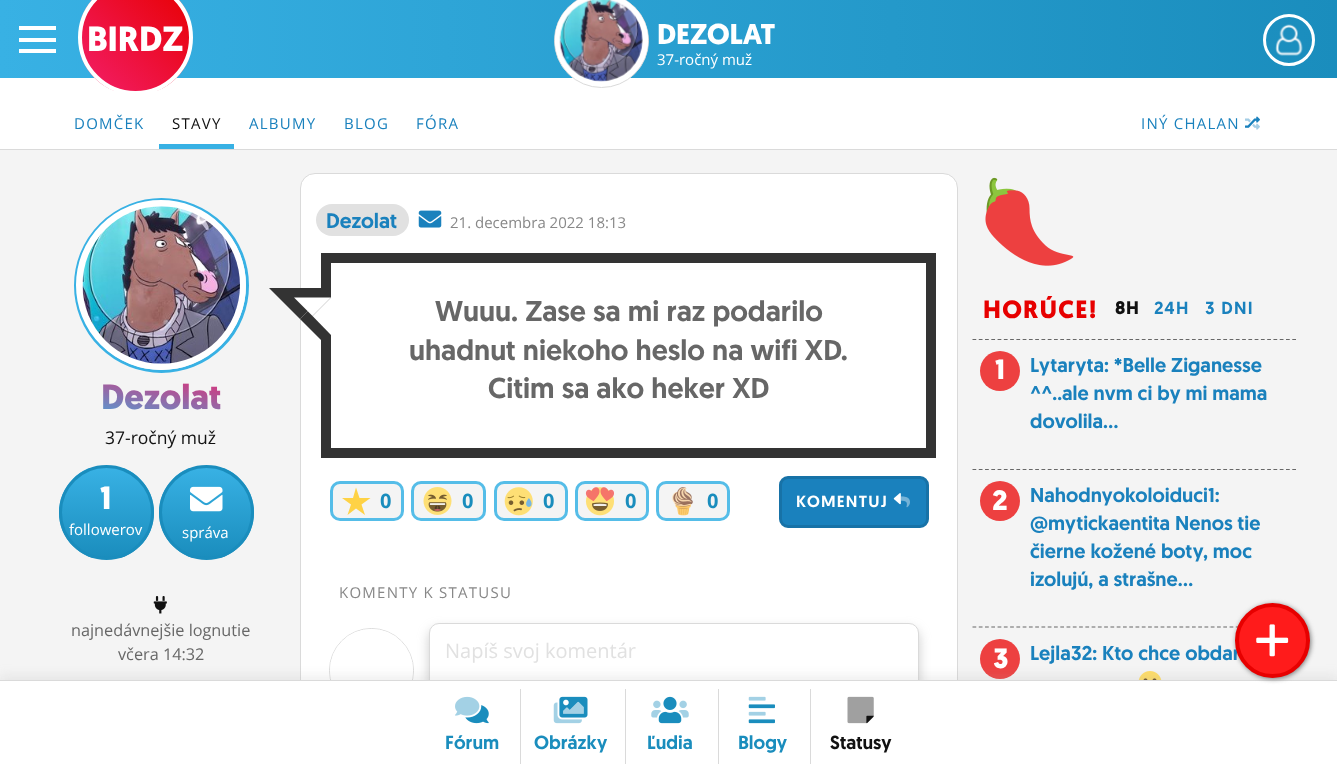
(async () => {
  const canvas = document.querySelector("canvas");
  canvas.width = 1337;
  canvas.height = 779;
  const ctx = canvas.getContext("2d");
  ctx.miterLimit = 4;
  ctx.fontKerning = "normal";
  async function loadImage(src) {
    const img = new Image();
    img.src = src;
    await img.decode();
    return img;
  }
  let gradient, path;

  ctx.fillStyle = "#f4f4f4";
  ctx.fillRect(0, 0, 1337, 779);
  gradient = ctx.createLinearGradient(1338, 39, 0, 39);
  gradient.addColorStop(0, "#1a8dbd");
  gradient.addColorStop(1, "#38b1e4");
  ctx.fillStyle = gradient;
  ctx.fillRect(0, 0, 1337, 78);
  for (const [x, y, w, h, color] of [
    [19, 26, 37, 4, "#ffffff"],
    [19, 38, 37, 4, "#ffffff"],
    [19, 49, 37, 4, "#ffffff"],
    [0, 78, 1337, 71, "#ffffff"],
  ]) {
    ctx.fillStyle = color;
    ctx.fillRect(x, y, w, h);
  }
  ctx.save();
  ctx.beginPath();
  ctx.roundRect(78, -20, 115, 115, 57.5);
  ctx.clip();
  gradient = ctx.createLinearGradient(189, -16, 81, 91);
  gradient.addColorStop(0, "#e70000");
  gradient.addColorStop(1, "#f31e69");
  ctx.fillStyle = gradient;
  ctx.fillRect(81, 0, 108, 91);
  ctx.restore();
  ctx.beginPath();
  ctx.arc(135.5, 37.5, 55.5, 0, Math.PI * 2);
  ctx.strokeStyle = "#ffffff";
  ctx.lineWidth = 4;
  ctx.stroke();
  ctx.beginPath();
  ctx.arc(601.5, 40.5, 47, 0, Math.PI * 2);
  ctx.fill();
  ctx.strokeStyle = "#dadada";
  ctx.lineWidth = 1;
  ctx.stroke();
  ctx.beginPath();
  ctx.roundRect(557.5, -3.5, 88, 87, 43.5);
  ctx.fill();
  ctx.strokeStyle = "#ffffff";
  ctx.lineWidth = 5;
  ctx.stroke();
  ctx.drawImage(await loadImage("img/1.png"), 559, 0, 84, 82);
  ctx.beginPath();
  ctx.arc(1289, 40, 24.5, 0, Math.PI * 2);
  ctx.lineWidth = 3;
  ctx.stroke();
  ctx.drawImage(await loadImage("img/2.png"), 1275, 24, 28, 32);
  ctx.fillStyle = "#dadada";
  ctx.fillRect(0, 149, 1337, 1);
  ctx.fillStyle = "#38b1e4";
  ctx.fillRect(159, 144, 75, 5);
  ctx.drawImage(await loadImage("img/3.png"), 1245, 116, 15, 12);
  ctx.drawImage(await loadImage("img/4.png"), 1245, 118, 15, 12);
  ctx.beginPath();
  ctx.arc(161.5, 285.5, 86, 0, Math.PI * 2);
  ctx.strokeStyle = "#38b1e4";
  ctx.stroke();
  ctx.fillStyle = "#ffffff";
  ctx.beginPath();
  ctx.arc(161, 285, 82, 0, Math.PI * 2);
  ctx.fill();
  ctx.strokeStyle = "#ffffff";
  ctx.lineWidth = 6;
  ctx.stroke();
  ctx.drawImage(await loadImage("img/5.png"), 82, 206, 158, 158);
  ctx.save();
  ctx.beginPath();
  ctx.roundRect(59, 465, 95, 95, 47.5);
  ctx.clip();
  gradient = ctx.createLinearGradient(106, 468, 106, 558);
  gradient.addColorStop(0, "#38b1e4");
  gradient.addColorStop(1, "#1a8dbd");
  ctx.fillStyle = gradient;
  ctx.fillRect(59, 468, 95, 90);
  ctx.restore();
  ctx.beginPath();
  ctx.arc(106.5, 512.5, 46, 0, Math.PI * 2);
  ctx.strokeStyle = "#1a8dbd";
  ctx.lineWidth = 3;
  ctx.stroke();
  ctx.save();
  ctx.beginPath();
  ctx.roundRect(159, 465, 95, 95, 47.5);
  ctx.clip();
  gradient = ctx.createLinearGradient(206, 468, 206, 558);
  gradient.addColorStop(0, "#38b1e4");
  gradient.addColorStop(1, "#1a8dbd");
  ctx.fillStyle = gradient;
  ctx.fillRect(159, 468, 95, 90);
  ctx.restore();
  ctx.beginPath();
  ctx.arc(206.5, 512.5, 46, 0, Math.PI * 2);
  ctx.stroke();
  ctx.drawImage(await loadImage("img/6.png"), 190, 486, 33, 26);
  ctx.drawImage(await loadImage("img/7.png"), 153, 596, 14, 18);
  ctx.beginPath();
  ctx.roundRect(300.5, 173.5, 657, 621, 14.5);
  ctx.fill();
  ctx.strokeStyle = "#dadada";
  ctx.lineWidth = 1;
  ctx.stroke();
  ctx.fillStyle = "#e1e1e1";
  ctx.beginPath();
  ctx.roundRect(316, 204, 93, 32, 16);
  ctx.fill();
  ctx.drawImage(await loadImage("img/8.png"), 418, 210, 24, 18);
  ctx.strokeStyle = "#333333";
  ctx.lineWidth = 10;
  ctx.strokeRect(326, 258, 605, 195);
  ctx.fillStyle = "#333333";
  path = new Path2D("M269 288H331L300 319Z");
  ctx.fill(path);
  path = new Path2D("M331 288V350L300 319Z");
  ctx.fill(path);
  ctx.fillStyle = "#ffffff";
  path = new Path2D("M294 297.5H331L312.5 316Z");
  ctx.fill(path);
  path = new Path2D("M331 297.5V335L312.5 316Z");
  ctx.fill(path);
  ctx.fillStyle = "#f4f4f4";
  ctx.beginPath();
  ctx.roundRect(331.5, 482.5, 71, 37, 8.5);
  ctx.fill();
  ctx.strokeStyle = "#55bde8";
  ctx.lineWidth = 3;
  ctx.stroke();
  ctx.fillStyle = "#fed245";
  path = new Path2D("M370.5 498H359.5L356 487.5L353 498H342L351 504.5L347.5 515L356 508.5L365 515L361.5 504.5Z");
  ctx.fill(path);
  ctx.fillStyle = "#f4f4f4";
  ctx.beginPath();
  ctx.roundRect(412.5, 482.5, 72, 37, 8.5);
  ctx.fill();
  ctx.stroke();
  ctx.drawImage(await loadImage("img/9.png"), 423, 487, 29, 28);
  ctx.beginPath();
  ctx.roundRect(495.5, 482.5, 71, 37, 8.5);
  ctx.fill();
  ctx.stroke();
  ctx.drawImage(await loadImage("img/10.png"), 504, 487, 29, 29);
  ctx.beginPath();
  ctx.roundRect(576.5, 482.5, 71, 37, 8.5);
  ctx.fill();
  ctx.stroke();
  ctx.drawImage(await loadImage("img/11.png"), 585, 487, 29, 29);
  ctx.beginPath();
  ctx.roundRect(657.5, 482.5, 71, 37, 8.5);
  ctx.fill();
  ctx.stroke();
  ctx.drawImage(await loadImage("img/12.png"), 672, 487, 21, 29);
  ctx.fillStyle = "#1a81bd";
  ctx.beginPath();
  ctx.roundRect(780.5, 477.5, 147, 49, 7.5);
  ctx.fill();
  ctx.strokeStyle = "#1772a7";
  ctx.stroke();
  ctx.drawImage(await loadImage("img/13.png"), 893, 493, 8, 12);
  ctx.drawImage(await loadImage("img/14.png"), 901, 496, 9, 12);
  ctx.fillStyle = "rgba(153, 153, 153, 0.5)";
  ctx.filter = "blur(6px)";
  ctx.beginPath();
  ctx.roundRect(429, 629, 490, 125, 10);
  ctx.fill();
  ctx.filter = "none";
  ctx.beginPath();
  ctx.arc(371.5, 670.5, 42, 0, Math.PI * 2);
  ctx.strokeStyle = "#dadada";
  ctx.lineWidth = 1;
  ctx.stroke();
  ctx.beginPath();
  ctx.roundRect(332, 631, 79, 78, 39);
  ctx.strokeStyle = "#ffffff";
  ctx.lineWidth = 4;
  ctx.stroke();
  ctx.fillStyle = "#ffffff";
  ctx.beginPath();
  ctx.roundRect(429.5, 623.5, 489, 124, 9.5);
  ctx.fill();
  ctx.strokeStyle = "#dadada";
  ctx.lineWidth = 1;
  ctx.stroke();
  ctx.drawImage(await loadImage("img/15.png"), 985, 177, 89, 89);
  path = new Path2D("M972.5 339.5H1296");
  ctx.strokeStyle = "#676767";
  ctx.lineWidth = 1.2;
  ctx.setLineDash([3.75, 2.52]);
  ctx.stroke(path);
  ctx.fillStyle = "#ed4040";
  ctx.beginPath();
  ctx.arc(1000, 371, 20, 0, Math.PI * 2);
  ctx.fill();
  path = new Path2D("M972.5 469.5H1296");
  ctx.stroke(path);
  ctx.beginPath();
  ctx.arc(1000, 501, 20, 0, Math.PI * 2);
  ctx.fill();
  path = new Path2D("M972.5 627H1296");
  ctx.stroke(path);
  ctx.beginPath();
  ctx.arc(1000, 659, 20, 0, Math.PI * 2);
  ctx.fill();
  ctx.drawImage(await loadImage("img/16.png"), 1138, 671, 24, 9);
  ctx.fillStyle = "rgba(170, 170, 170, 0.2)";
  ctx.filter = "blur(6px)";
  ctx.beginPath();
  ctx.rect(0, 676, 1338, 100);
  ctx.fill();
  ctx.filter = "none";
  ctx.fillStyle = "#ffffff";
  ctx.fillRect(0, 681, 1337, 98);
  ctx.fillStyle = "#dadada";
  ctx.fillRect(0, 680, 1337, 1);
  ctx.fillStyle = "#787878";
  ctx.filter = "blur(2.5px)";
  ctx.beginPath();
  ctx.roundRect(1236, 604, 75, 75, 37.5);
  ctx.fill();
  ctx.filter = "none";
  ctx.drawImage(await loadImage("img/19.png"), 465, 705, 24, 19);
  ctx.drawImage(await loadImage("img/18.png"), 455, 696, 25, 20);
  ctx.fillStyle = "#dadada";
  ctx.fillRect(520, 689, 1, 75);
  ctx.drawImage(await loadImage("img/20.png"), 559, 696, 29, 22);
  ctx.drawImage(await loadImage("img/21.png"), 553, 702, 31, 22);
  ctx.fillRect(625, 689, 1, 75);
  ctx.drawImage(await loadImage("img/22.png"), 658, 696, 24, 28);
  ctx.drawImage(await loadImage("img/23.png"), 651, 700, 38, 18);
  ctx.fillRect(718, 689, 1, 75);
  ctx.drawImage(await loadImage("img/25.png"), 748, 704, 27, 20);
  ctx.drawImage(await loadImage("img/24.png"), 748, 696, 18, 20);
  ctx.fillRect(810, 689, 1, 75);
  ctx.drawImage(await loadImage("img/27.png"), 866, 715, 8, 9);
  ctx.drawImage(await loadImage("img/26.png"), 847, 696, 27, 28);
  ctx.font = "bold 35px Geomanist";
  ctx.fillStyle = "#ffffff";
  ctx.fillText("BIRDZ", 87, 51);
  ctx.font = "bold 28.75px Geomanist";
  ctx.fillText("DEZOLAT", 657, 44);
  ctx.font = "15px Open Sans";
  ctx.fillText("37-ročný muž", 657, 65);
  ctx.letterSpacing = "1.25px";
  ctx.fillStyle = "#1a81bd";
  ctx.fillText("DOMČEK", 74, 129);
  ctx.fillStyle = "#111111";
  ctx.fillText("STAVY", 172, 129);
  ctx.fillStyle = "#1a81bd";
  for (const [text, x, y] of [
    ["ALBUMY", 249, 129],
    ["BLOG", 344, 129],
    ["FÓRA", 416, 129],
    ["INÝ CHALAN", 1141, 129],
  ]) {
    ctx.fillText(text, x, y);
  }
  ctx.letterSpacing = "0px";
  ctx.font = "bold 35px Geomanist";
  gradient = ctx.createLinearGradient(167, 361, 154, 436);
  gradient.addColorStop(0, "#f31e69");
  gradient.addColorStop(1, "#38b1e4");
  ctx.fillStyle = gradient;
  ctx.fillText("Dezolat", 101, 409);
  ctx.font = "17.5px Open Sans";
  ctx.fillStyle = "#111111";
  ctx.fillText("37-ročný muž", 105, 444);
  ctx.font = "bold 32px Geomanist";
  ctx.fillStyle = "#ffffff";
  ctx.fillText("1", 100, 509);
  ctx.font = "15px Open Sans";
  ctx.fillText("followerov", 69, 535);
  ctx.fillText("správa", 182, 538);
  ctx.font = "16.25px Open Sans";
  ctx.fillStyle = "#676767";
  ctx.fillText("najnedávnejšie lognutie", 71, 636);
  ctx.fillText("včera 14:32", 118, 660);
  ctx.font = "500 21px Geomanist";
  ctx.fillStyle = "#1a81bd";
  ctx.fillText("Dezolat", 326, 228);
  ctx.font = "15px Open Sans";
  ctx.fillStyle = "#888888";
  ctx.fillText("21. decembra 2022 18:13", 450, 228);
  ctx.font = "500 28.75px Geomanist";
  ctx.fillStyle = "#676767";
  for (const [text, x, y] of [
    ["Wuuu. Zase sa mi raz podarilo", 435, 321],
    ["uhadnut niekoho heslo na wifi XD.", 409, 360],
    ["Citim sa ako heker XD", 488, 398],
  ]) {
    ctx.fillText(text, x, y);
  }
  ctx.font = "bold 20px Open Sans";
  ctx.fillStyle = "#1a8dbd";
  for (const [text, x, y] of [
    ["0", 380, 508],
    ["0", 462, 508],
    ["0", 543, 508],
    ["0", 625, 508],
    ["0", 707, 508],
  ]) {
    ctx.fillText(text, x, y);
  }
  ctx.letterSpacing = "1.25px";
  ctx.font = "500 16.25px Geomanist";
  ctx.fillStyle = "#ffffff";
  ctx.fillText("KOMENTUJ", 796, 507);
  ctx.font = "15px Open Sans";
  ctx.fillStyle = "#888888";
  ctx.fillText("KOMENTY K STATUSU", 339, 598);
  ctx.letterSpacing = "0px";
  ctx.font = "20px Open Sans";
  ctx.fillStyle = "#e1e1e1";
  ctx.fillText("Napíš svoj komentár", 445, 658);
  ctx.letterSpacing = "1.25px";
  ctx.font = "bold 25px Geomanist";
  ctx.fillStyle = "#e70000";
  ctx.fillText("HORÚCE!", 983, 318);
  ctx.font = "bold 17.5px 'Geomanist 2'";
  ctx.fillStyle = "#111111";
  ctx.fillText("8H", 1115, 314);
  ctx.font = "500 17.5px Geomanist";
  ctx.fillStyle = "#1a81bd";
  ctx.fillText("24H", 1154, 314);
  ctx.fillText("3 DNI", 1205, 314);
  ctx.letterSpacing = "0px";
  ctx.font = "bold 28px Geomanist";
  ctx.fillStyle = "#ffffff";
  ctx.fillText("1", 995, 379);
  ctx.font = "500 20px Geomanist";
  ctx.fillStyle = "#1a81bd";
  for (const [text, x, y] of [
    ["Lytaryta: *Belle Ziganesse", 1030, 372],
    ["^^..ale nvm ci by mi mama", 1030, 400],
    ["dovolila...", 1030, 428],
  ]) {
    ctx.fillText(text, x, y);
  }
  ctx.font = "bold 28px Geomanist";
  ctx.fillStyle = "#ffffff";
  ctx.fillText("2", 992, 510);
  ctx.font = "500 20px Geomanist";
  ctx.fillStyle = "#1a81bd";
  for (const [text, x, y] of [
    ["Nahodnyokoloiduci1:", 1030, 502],
    ["@mytickaentita Nenos tie", 1030, 530],
    ["čierne kožené boty, moc", 1030, 558],
    ["izolujú, a strašne...", 1030, 586],
  ]) {
    ctx.fillText(text, x, y);
  }
  ctx.font = "bold 28px Geomanist";
  ctx.fillStyle = "#ffffff";
  ctx.fillText("3", 993, 668);
  ctx.font = "500 20px Geomanist";
  ctx.fillStyle = "#1a81bd";
  ctx.fillText("Lejla32: Kto chce obdar", 1030, 660);
  ctx.fillStyle = "#ff1b1b";
  ctx.beginPath();
  ctx.arc(1272.5, 640.5, 35.5, 0, Math.PI * 2);
  ctx.fill();
  ctx.strokeStyle = "#e70000";
  ctx.lineWidth = 4;
  ctx.setLineDash([]);
  ctx.stroke();
  ctx.drawImage(await loadImage("img/17.png"), 1256, 624, 33, 33);
  ctx.font = "500 19px Geomanist";
  ctx.fillStyle = "#1a8dbd";
  for (const [text, x, y] of [
    ["Fórum", 445, 749],
    ["Obrázky", 534, 749],
    ["Ľudia", 647, 749],
    ["Blogy", 738, 749],
  ]) {
    ctx.fillText(text, x, y);
  }
  ctx.fillStyle = "#111111";
  ctx.fillText("Statusy", 830, 749);
})();
